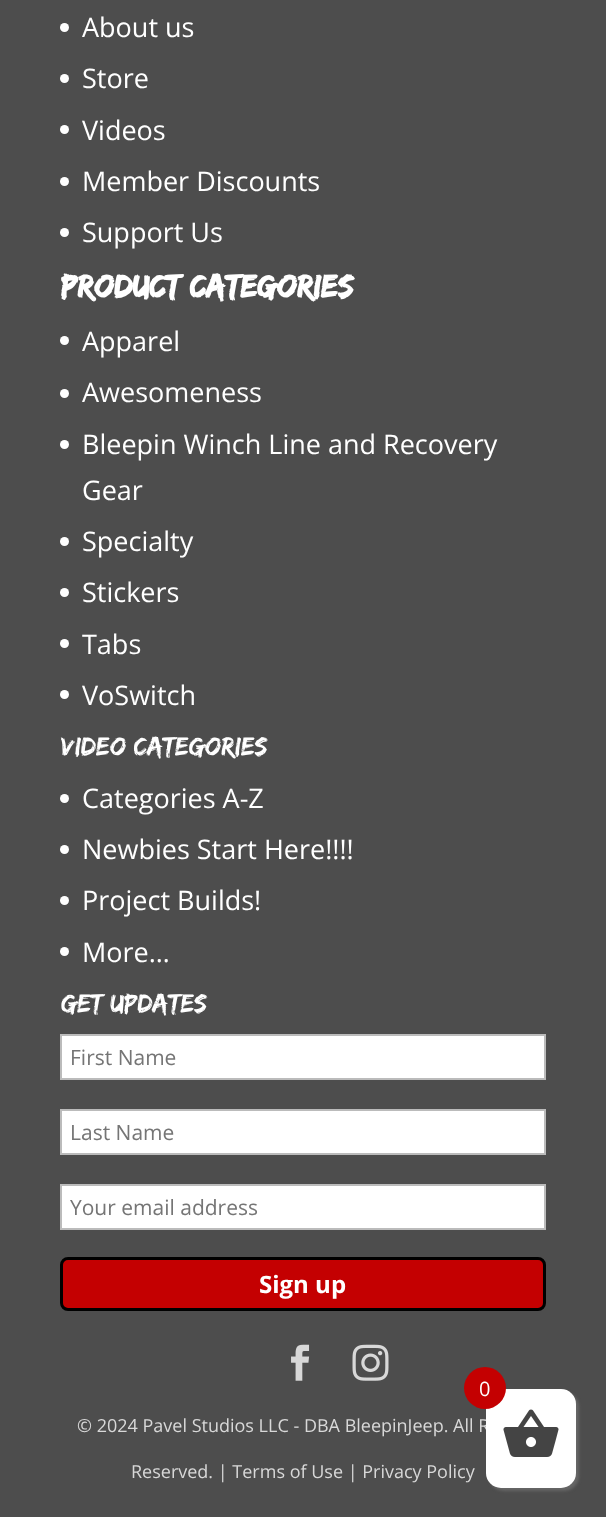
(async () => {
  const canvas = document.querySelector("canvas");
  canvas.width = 606;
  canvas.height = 1517;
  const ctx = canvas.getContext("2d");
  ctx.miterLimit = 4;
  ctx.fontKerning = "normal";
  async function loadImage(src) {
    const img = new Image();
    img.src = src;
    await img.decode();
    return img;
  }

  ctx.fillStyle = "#4d4d4d";
  ctx.fillRect(0, 0, 606, 1517);
  ctx.fillStyle = "#ffffff";
  ctx.beginPath();
  ctx.arc(64.5, 27.5, 4.5, 0, Math.PI * 2);
  ctx.fill();
  ctx.beginPath();
  ctx.arc(64.5, 78.5, 4.5, 0, Math.PI * 2);
  ctx.fill();
  ctx.beginPath();
  ctx.arc(64.5, 129.5, 4.5, 0, Math.PI * 2);
  ctx.fill();
  ctx.beginPath();
  ctx.arc(64.5, 181.5, 4.5, 0, Math.PI * 2);
  ctx.fill();
  ctx.beginPath();
  ctx.arc(64.5, 232.5, 4.5, 0, Math.PI * 2);
  ctx.fill();
  ctx.beginPath();
  ctx.arc(64.5, 340.5, 4.5, 0, Math.PI * 2);
  ctx.fill();
  ctx.beginPath();
  ctx.arc(64.5, 393.5, 4.5, 0, Math.PI * 2);
  ctx.fill();
  ctx.beginPath();
  ctx.arc(64.5, 444.5, 4.5, 0, Math.PI * 2);
  ctx.fill();
  ctx.beginPath();
  ctx.arc(64.5, 541.5, 4.5, 0, Math.PI * 2);
  ctx.fill();
  ctx.beginPath();
  ctx.arc(64.5, 592.5, 4.5, 0, Math.PI * 2);
  ctx.fill();
  ctx.beginPath();
  ctx.arc(64.5, 643.5, 4.5, 0, Math.PI * 2);
  ctx.fill();
  ctx.beginPath();
  ctx.arc(64.5, 694.5, 4.5, 0, Math.PI * 2);
  ctx.fill();
  ctx.beginPath();
  ctx.arc(64.5, 798.5, 4.5, 0, Math.PI * 2);
  ctx.fill();
  ctx.beginPath();
  ctx.arc(64.5, 849.5, 4.5, 0, Math.PI * 2);
  ctx.fill();
  ctx.beginPath();
  ctx.arc(64.5, 900.5, 4.5, 0, Math.PI * 2);
  ctx.fill();
  ctx.beginPath();
  ctx.arc(64.5, 951.5, 4.5, 0, Math.PI * 2);
  ctx.fill();
  ctx.beginPath();
  ctx.rect(61, 1035, 484, 44);
  ctx.fill();
  ctx.strokeStyle = "#bbbbbb";
  ctx.lineWidth = 2;
  ctx.stroke();
  ctx.beginPath();
  ctx.rect(61, 1110, 484, 44);
  ctx.fill();
  ctx.stroke();
  ctx.beginPath();
  ctx.rect(61, 1185, 484, 44);
  ctx.fill();
  ctx.stroke();
  ctx.fillStyle = "#c40001";
  ctx.beginPath();
  ctx.roundRect(61.5, 1258.5, 483, 51, 6.5);
  ctx.fill();
  ctx.strokeStyle = "#000000";
  ctx.lineWidth = 3;
  ctx.stroke();
  ctx.drawImage(await loadImage("img/1.png"), 291, 1344, 19, 37);
  ctx.drawImage(await loadImage("img/2.png"), 352, 1344, 37, 37);
  ctx.fillStyle = "#666666";
  ctx.filter = "blur(1.5px)";
  ctx.beginPath();
  ctx.roundRect(489, 1392, 90, 99, 15);
  ctx.fill();
  ctx.filter = "none";
  ctx.font = "27px Open Sans";
  ctx.fillStyle = "#ffffff";
  for (const [text, x, y] of [
    ["About us", 82, 37],
    ["Store", 82, 88],
    ["Videos", 82, 140],
    ["Member Discounts", 82, 191],
    ["Support Us", 82, 242],
  ]) {
    ctx.fillText(text, x, y);
  }
  ctx.font = "bold 33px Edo";
  ctx.fillText("Product categories", 61, 297);
  ctx.font = "27px Open Sans";
  for (const [text, x, y] of [
    ["Apparel", 82, 351],
    ["Awesomeness", 82, 402],
    ["Bleepin Winch Line and Recovery", 82, 454],
    ["Gear", 82, 500],
    ["Specialty", 82, 551],
    ["Stickers", 82, 602],
    ["Tabs", 82, 654],
    ["VoSwitch", 82, 705],
  ]) {
    ctx.fillText(text, x, y);
  }
  ctx.font = "27px Edo";
  ctx.fillText("Video Categories", 61, 755);
  ctx.font = "27px Open Sans";
  for (const [text, x, y] of [
    ["Categories A-Z", 82, 808],
    ["Newbies Start Here!!!!", 82, 859],
    ["Project Builds!", 82, 910],
    ["More…", 82, 962],
  ]) {
    ctx.fillText(text, x, y);
  }
  ctx.font = "27px Edo";
  ctx.fillText("Get Updates", 61, 1012);
  ctx.font = "21px Open Sans";
  ctx.fillStyle = "#757575";
  for (const [text, x, y] of [
    ["First Name", 70, 1065],
    ["Last Name", 70, 1140],
    ["Your email address", 70, 1215],
  ]) {
    ctx.fillText(text, x, y);
  }
  ctx.font = "bold 24px Open Sans";
  ctx.fillStyle = "#ffffff";
  ctx.fillText("Sign up", 259, 1293);
  ctx.font = "18px Open Sans";
  ctx.fillStyle = "#d8d8d8";
  ctx.fillText("© 2024 Pavel Studios LLC - DBA BleepinJeep. All R", 77, 1432);
  ctx.fillText("Reserved. | Terms of Use | Privacy Policy", 131, 1478);
  ctx.fillStyle = "#ffffff";
  ctx.beginPath();
  ctx.roundRect(486, 1389, 90, 99, 15);
  ctx.fill();
  ctx.fillStyle = "#c40001";
  ctx.beginPath();
  ctx.arc(485, 1388, 21, 0, Math.PI * 2);
  ctx.fill();
  ctx.font = "20px Open Sans";
  ctx.fillStyle = "#ffffff";
  ctx.fillText("0", 479, 1396);
  ctx.drawImage(await loadImage("img/3.png"), 503, 1409, 56, 48);
})();
